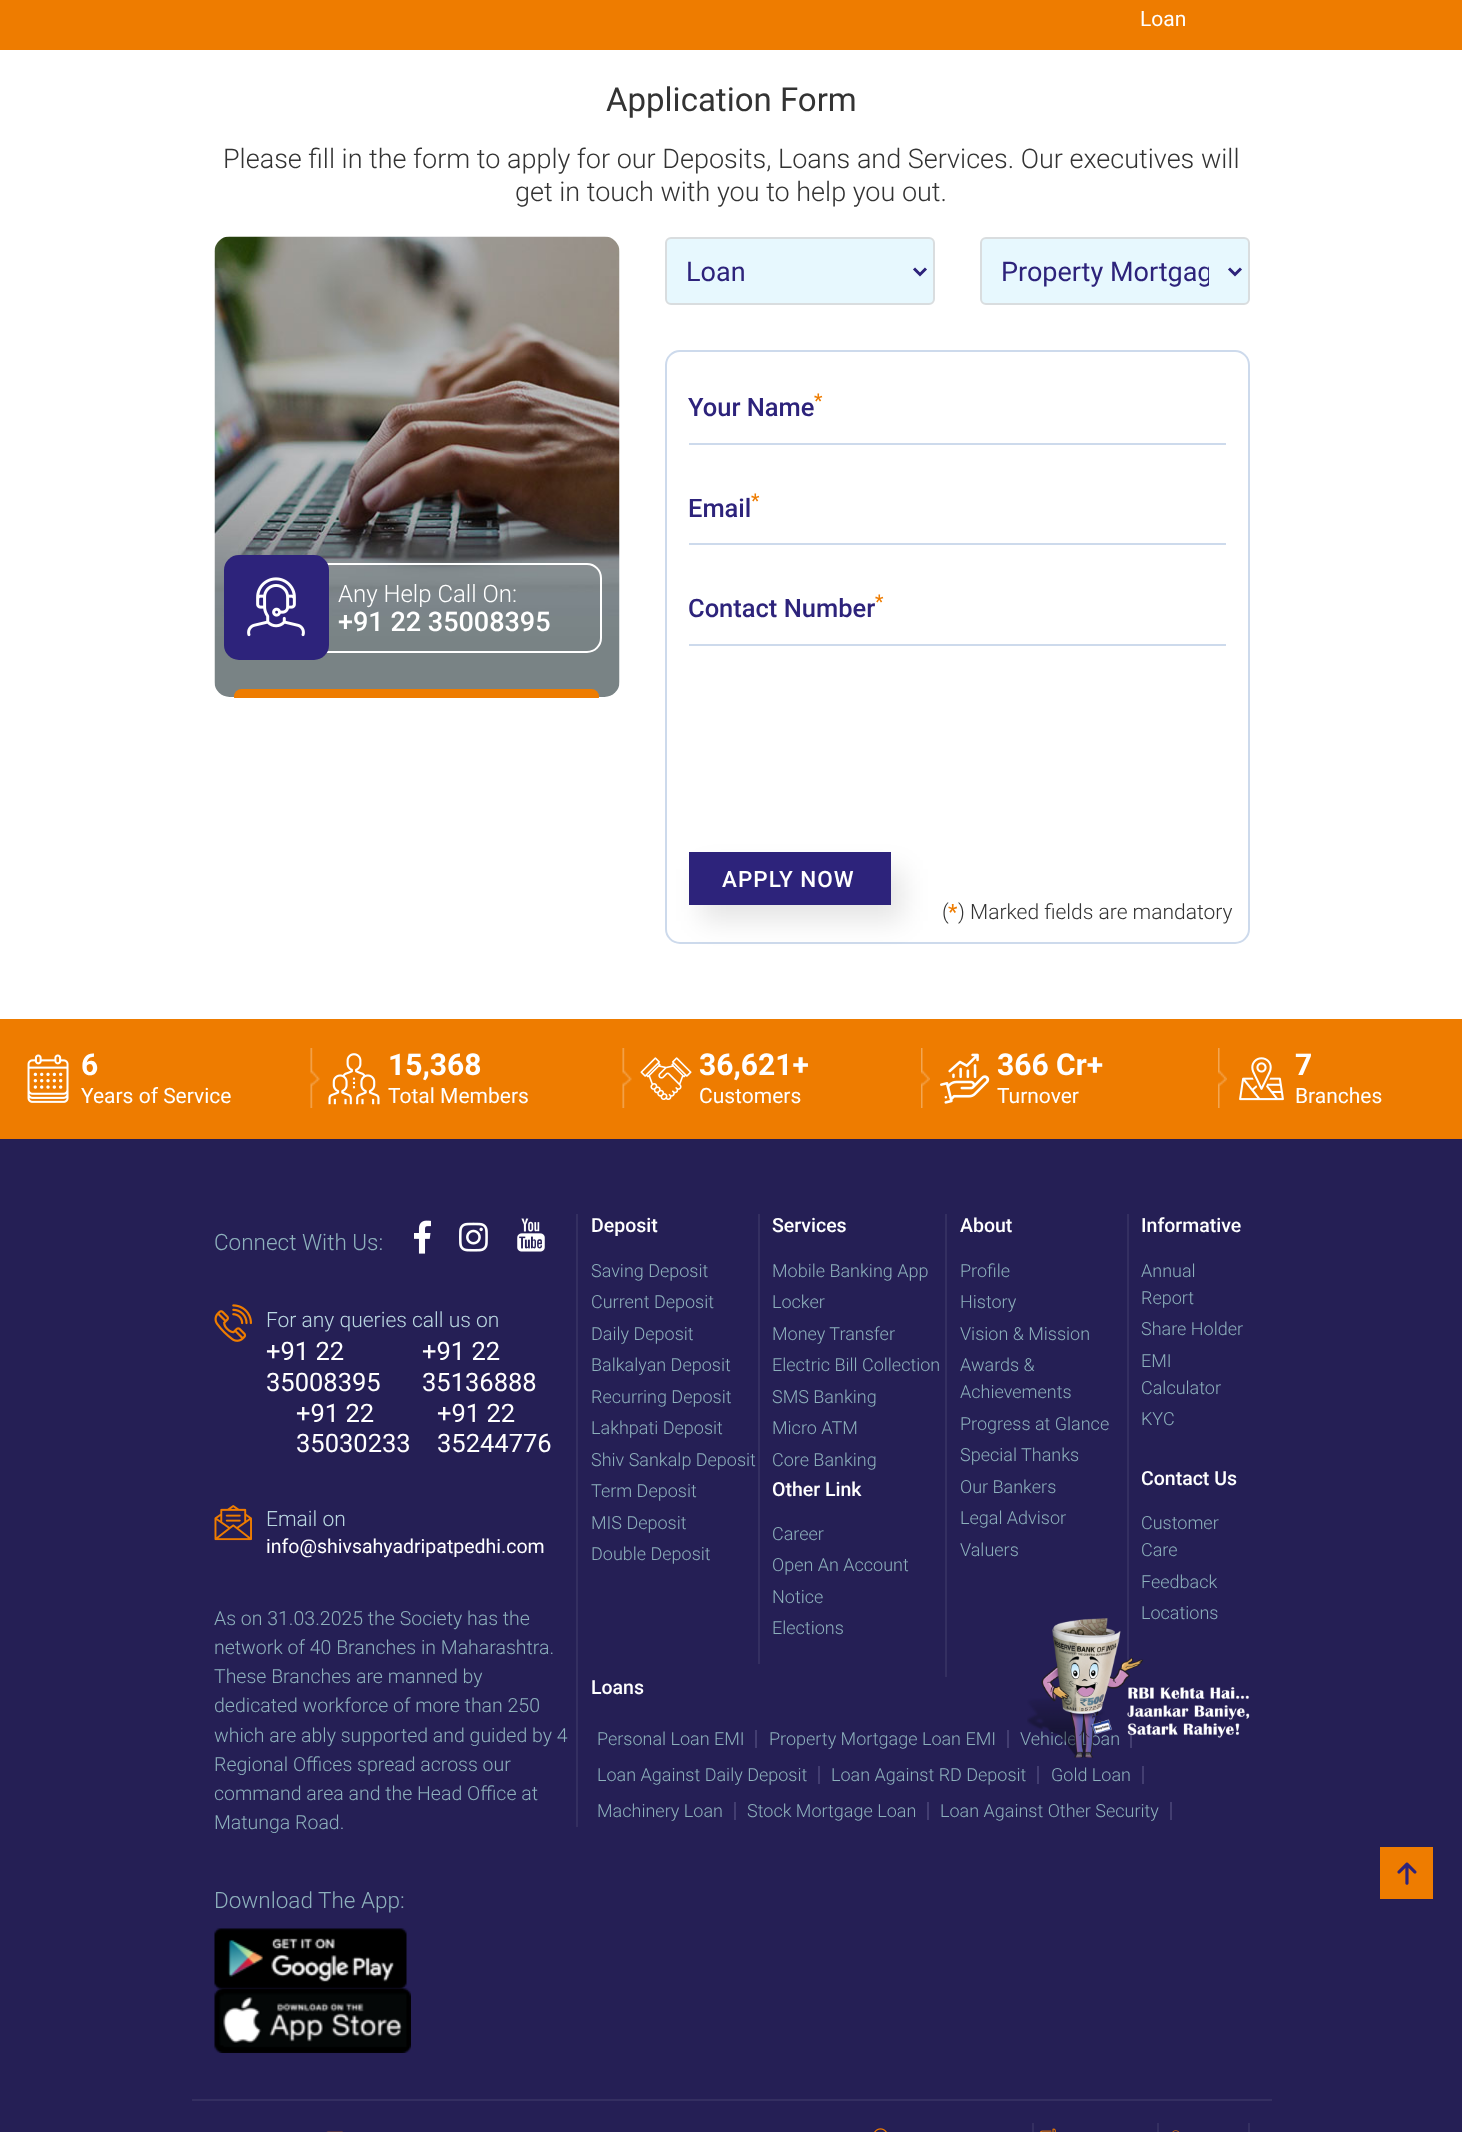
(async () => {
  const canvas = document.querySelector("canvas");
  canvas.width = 1462;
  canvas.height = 2132;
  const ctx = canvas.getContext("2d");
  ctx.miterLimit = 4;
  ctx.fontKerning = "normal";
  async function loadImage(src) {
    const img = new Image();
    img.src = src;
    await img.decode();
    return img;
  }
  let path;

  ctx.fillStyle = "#ffffff";
  ctx.fillRect(0, 0, 1462, 2132);
  ctx.fillStyle = "#ee7c00";
  ctx.fillRect(0, 0, 1462, 50);
  ctx.drawImage(await loadImage("img/1.png"), 214, 236, 406, 461);
  ctx.beginPath();
  ctx.roundRect(232, 564, 369, 88, 14);
  ctx.strokeStyle = "#ffffff";
  ctx.lineWidth = 2;
  ctx.stroke();
  ctx.fillStyle = "#2d237b";
  ctx.beginPath();
  ctx.roundRect(224, 555, 105, 105, 15);
  ctx.fill();
  ctx.drawImage(await loadImage("img/2.png"), 247, 577, 58, 60);
  ctx.save();
  ctx.beginPath();
  ctx.roundRect(215, 237, 405, 461, 15);
  ctx.clip();
  ctx.fillStyle = "#ee7c00";
  ctx.beginPath();
  ctx.roundRect(234, 689, 365, 15, 7.5);
  ctx.fill();
  ctx.restore();
  ctx.fillStyle = "#e7f8fe";
  ctx.beginPath();
  ctx.roundRect(666, 238, 268, 66, 5);
  ctx.fill();
  ctx.strokeStyle = "#d9dddf";
  ctx.stroke();
  path = new Path2D("M914 268.5L920 274.5L926 268.5");
  ctx.strokeStyle = "#2d237b";
  ctx.lineWidth = 3;
  ctx.stroke(path);
  ctx.beginPath();
  ctx.roundRect(981, 238, 268, 66, 5);
  ctx.fill();
  ctx.strokeStyle = "#d9dddf";
  ctx.lineWidth = 2;
  ctx.stroke();
  path = new Path2D("M1229 268.5L1235 274.5L1241 268.5");
  ctx.strokeStyle = "#2d237b";
  ctx.lineWidth = 3;
  ctx.stroke(path);
  ctx.beginPath();
  ctx.roundRect(666, 351, 583, 592, 14);
  ctx.strokeStyle = "#cddaec";
  ctx.lineWidth = 2;
  ctx.stroke();
  for (const [x, y, w, h, color] of [
    [689, 443, 537, 2, "#cddaec"],
    [689, 543, 537, 2, "#cddaec"],
    [689, 644, 537, 2, "#cddaec"],
  ]) {
    ctx.fillStyle = color;
    ctx.fillRect(x, y, w, h);
  }
  ctx.fillStyle = "rgba(0, 0, 0, 0.1)";
  ctx.filter = "blur(13.5px)";
  ctx.beginPath();
  ctx.rect(701, 869, 202, 52);
  ctx.fill();
  ctx.filter = "none";
  ctx.fillStyle = "#2d237b";
  ctx.fillRect(689, 852, 202, 53);
  ctx.fillStyle = "#ee7c00";
  ctx.fillRect(0, 1019, 1462, 120);
  ctx.drawImage(await loadImage("img/3.png"), 310, 1048, 10, 60);
  ctx.drawImage(await loadImage("img/4.png"), 27, 1054, 42, 49);
  ctx.drawImage(await loadImage("img/5.png"), 622, 1048, 10, 60);
  ctx.drawImage(await loadImage("img/6.png"), 328, 1053, 52, 52);
  ctx.drawImage(await loadImage("img/7.png"), 921, 1048, 9, 60);
  ctx.drawImage(await loadImage("img/8.png"), 640, 1057, 52, 43);
  ctx.drawImage(await loadImage("img/9.png"), 1218, 1048, 9, 60);
  ctx.drawImage(await loadImage("img/10.png"), 940, 1053, 50, 51);
  ctx.drawImage(await loadImage("img/11.png"), 1239, 1057, 45, 44);
  ctx.fillStyle = "#251f55";
  ctx.fillRect(0, 1139, 1462, 993);
  ctx.fillStyle = "#342f61";
  ctx.fillRect(192, 2099, 1080, 2);
  ctx.drawImage(await loadImage("img/12.png"), 414, 1220, 17, 34);
  ctx.drawImage(await loadImage("img/13.png"), 459, 1222, 29, 30);
  ctx.drawImage(await loadImage("img/14.png"), 517, 1218, 28, 34);
  ctx.drawImage(await loadImage("img/15.png"), 214, 1304, 38, 38);
  ctx.drawImage(await loadImage("img/16.png"), 214, 1505, 38, 36);
  ctx.drawImage(await loadImage("img/17.png"), 214, 1928, 193, 61);
  ctx.drawImage(await loadImage("img/18.png"), 214, 1988, 197, 65);
  for (const [x, y, w, h, color] of [
    [576, 1214, 2, 613, "#342f61"],
    [758, 1214, 2, 450, "#342f61"],
    [945, 1214, 2, 463, "#342f61"],
    [1127, 1214, 2, 450, "#342f61"],
    [755, 1730, 2, 18, "#433e71"],
    [1007, 1730, 2, 18, "#433e71"],
    [1130, 1730, 2, 18, "#433e71"],
    [818, 1766, 2, 18, "#433e71"],
    [1037, 1766, 2, 18, "#433e71"],
    [1142, 1766, 2, 18, "#433e71"],
    [734, 1802, 2, 18, "#433e71"],
    [927, 1802, 2, 18, "#433e71"],
    [1170, 1802, 2, 18, "#433e71"],
  ]) {
    ctx.fillStyle = color;
    ctx.fillRect(x, y, w, h);
  }
  ctx.drawImage(await loadImage("img/20.png"), 326, 2131, 17, 1);
  ctx.fillStyle = "#342f61";
  ctx.fillRect(1032, 2123, 2, 9);
  ctx.drawImage(await loadImage("img/21.png"), 874, 2128, 13, 4);
  ctx.fillRect(1157, 2123, 2, 9);
  ctx.drawImage(await loadImage("img/22.png"), 1040, 2128, 16, 4);
  ctx.fillRect(1248, 2123, 2, 9);
  ctx.drawImage(await loadImage("img/23.png"), 1172, 2130, 7, 2);
  ctx.fillStyle = "#ee7c00";
  ctx.fillRect(1380, 1847, 53, 52);
  ctx.drawImage(await loadImage("img/24.png"), 1397, 1862, 20, 23);
  ctx.font = "21px Roboto";
  ctx.fillStyle = "#ffffff";
  ctx.fillText("Loan", 1140, 26);
  ctx.font = "33px Roboto";
  ctx.fillStyle = "#333333";
  ctx.fillText("Application Form", 606, 111);
  ctx.font = "300 27px Roboto";
  ctx.fillText("Please fill in the form to apply for our Deposits, Loans and Services. Our executives will", 223, 168);
  ctx.fillText("get in touch with you to help you out.", 515, 201);
  ctx.font = "300 24px Roboto";
  ctx.fillStyle = "#ffffff";
  ctx.fillText("Any Help Call On:", 338, 602);
  ctx.font = "500 27px Roboto";
  ctx.fillText("+91 22 35008395", 338, 631);
  ctx.font = "27px Roboto";
  ctx.fillStyle = "#2d237b";
  ctx.fillText("Loan", 686, 281);
  ctx.save();
  ctx.beginPath();
  ctx.rect(1002, 254, 207, 34);
  ctx.clip();
  ctx.fillText("Property Mortgag", 1001, 281);
  ctx.restore();
  ctx.font = "500 25.5px Roboto";
  ctx.fillText("Your Name", 688, 416);
  ctx.font = "500 19px Roboto";
  ctx.fillStyle = "#ee7c00";
  ctx.fillText("*", 814, 407);
  ctx.font = "500 25.5px Roboto";
  ctx.fillStyle = "#2d237b";
  ctx.fillText("Email", 688, 517);
  ctx.font = "500 19px Roboto";
  ctx.fillStyle = "#ee7c00";
  ctx.fillText("*", 751, 507);
  ctx.font = "500 25.5px Roboto";
  ctx.fillStyle = "#2d237b";
  ctx.fillText("Contact Number", 688, 617);
  ctx.font = "500 19px Roboto";
  ctx.fillStyle = "#ee7c00";
  ctx.fillText("*", 875, 608);
  ctx.letterSpacing = "1px";
  ctx.font = "500 22.5px Roboto";
  ctx.fillStyle = "#ffffff";
  ctx.fillText("APPLY NOW", 722, 887);
  ctx.letterSpacing = "0px";
  ctx.font = "300 21px Roboto";
  ctx.fillStyle = "#333333";
  ctx.fillText("(", 942, 919);
  ctx.font = "500 21px Roboto";
  ctx.fillStyle = "#ee7c00";
  ctx.fillText("*", 948, 919);
  ctx.font = "300 21px Roboto";
  ctx.fillStyle = "#333333";
  ctx.fillText(") Marked fields are mandatory", 958, 919);
  ctx.font = "bold 30px Roboto";
  ctx.fillStyle = "#ffffff";
  ctx.fillText("6", 81, 1075);
  ctx.font = "21px Roboto";
  ctx.fillText("Years of Service", 81, 1103);
  ctx.font = "bold 30px Roboto";
  ctx.fillText("15,368", 388, 1075);
  ctx.font = "21px Roboto";
  ctx.fillText("Total Members", 388, 1103);
  ctx.font = "bold 30px Roboto";
  ctx.fillText("36,621+", 699, 1075);
  ctx.font = "21px Roboto";
  ctx.fillText("Customers", 699, 1103);
  ctx.font = "bold 30px Roboto";
  ctx.fillText("366 Cr+", 997, 1075);
  ctx.font = "21px Roboto";
  ctx.fillText("Turnover", 997, 1103);
  ctx.font = "bold 30px Roboto";
  ctx.fillText("7", 1295, 1075);
  ctx.font = "21px Roboto";
  ctx.fillText("Branches", 1295, 1103);
  ctx.font = "300 22.5px Roboto";
  ctx.fillStyle = "#8db0bc";
  ctx.fillText("Connect With Us:", 214, 1250);
  ctx.font = "300 21px Roboto";
  ctx.fillStyle = "#bad7e1";
  ctx.fillText("For any queries call us on", 266, 1327);
  ctx.font = "25.5px Roboto";
  ctx.fillStyle = "#ffffff";
  for (const [text, x, y] of [
    ["+91 22", 266, 1360],
    ["35008395", 266, 1391],
    ["+91 22", 422, 1360],
    ["35136888", 422, 1391],
    ["+91 22", 296, 1422],
    ["35030233", 296, 1452],
    ["+91 22", 437, 1422],
    ["35244776", 437, 1452],
  ]) {
    ctx.fillText(text, x, y);
  }
  ctx.font = "300 21px Roboto";
  ctx.fillStyle = "#bad7e1";
  ctx.fillText("Email on", 266, 1526);
  ctx.font = "19.5px Roboto";
  ctx.fillStyle = "#ffffff";
  ctx.fillText("info@shivsahyadripatpedhi.com", 266, 1553);
  ctx.font = "300 19.5px Roboto";
  ctx.fillStyle = "#8db0bc";
  for (const [text, x, y] of [
    ["As on 31.03.2025 the Society has the", 214, 1625],
    ["network of 40 Branches in Maharashtra.", 214, 1654],
    ["These Branches are manned by", 214, 1683],
    ["dedicated workforce of more than 250", 214, 1712],
    ["which are ably supported and guided by 4", 214, 1742],
    ["Regional Offices spread across our", 214, 1771],
    ["command area and the Head Office at", 214, 1800],
    ["Matunga Road.", 214, 1829],
  ]) {
    ctx.fillText(text, x, y);
  }
  ctx.font = "300 22.5px Roboto";
  ctx.fillText("Download The App:", 214, 1908);
  ctx.font = "500 19.5px Roboto";
  ctx.fillStyle = "#ffffff";
  ctx.fillText("Deposit", 591, 1232);
  ctx.font = "300 18px Roboto";
  ctx.fillStyle = "#8db0bc";
  for (const [text, x, y] of [
    ["Saving Deposit", 591, 1277],
    ["Current Deposit", 591, 1308],
    ["Daily Deposit", 591, 1340],
    ["Balkalyan Deposit", 591, 1371],
    ["Recurring Deposit", 591, 1403],
    ["Lakhpati Deposit", 591, 1434],
    ["Shiv Sankalp Deposit", 591, 1466],
    ["Term Deposit", 591, 1497],
    ["MIS Deposit", 591, 1529],
    ["Double Deposit", 591, 1560],
  ]) {
    ctx.fillText(text, x, y);
  }
  ctx.font = "500 19.5px Roboto";
  ctx.fillStyle = "#ffffff";
  ctx.fillText("Services", 772, 1232);
  ctx.font = "300 18px Roboto";
  ctx.fillStyle = "#8db0bc";
  for (const [text, x, y] of [
    ["Mobile Banking App", 772, 1277],
    ["Locker", 772, 1308],
    ["Money Transfer", 772, 1340],
    ["Electric Bill Collection", 772, 1371],
    ["SMS Banking", 772, 1403],
    ["Micro ATM", 772, 1434],
    ["Core Banking", 772, 1466],
  ]) {
    ctx.fillText(text, x, y);
  }
  ctx.font = "500 19.5px Roboto";
  ctx.fillStyle = "#ffffff";
  ctx.fillText("Other Link", 772, 1496);
  ctx.font = "300 18px Roboto";
  ctx.fillStyle = "#8db0bc";
  for (const [text, x, y] of [
    ["Career", 772, 1540],
    ["Open An Account", 772, 1571],
    ["Notice", 772, 1603],
    ["Elections", 772, 1634],
  ]) {
    ctx.fillText(text, x, y);
  }
  ctx.font = "500 19.5px Roboto";
  ctx.fillStyle = "#ffffff";
  ctx.fillText("About", 960, 1232);
  ctx.font = "300 18px Roboto";
  ctx.fillStyle = "#8db0bc";
  for (const [text, x, y] of [
    ["Profile", 960, 1277],
    ["History", 960, 1308],
    ["Vision & Mission", 960, 1340],
    ["Awards &", 960, 1371],
    ["Achievements", 960, 1398],
    ["Progress at Glance", 960, 1430],
    ["Special Thanks", 960, 1461],
    ["Our Bankers", 960, 1493],
    ["Legal Advisor", 960, 1524],
    ["Valuers", 960, 1556],
  ]) {
    ctx.fillText(text, x, y);
  }
  ctx.font = "500 19.5px Roboto";
  ctx.fillStyle = "#ffffff";
  ctx.fillText("Informative", 1141, 1232);
  ctx.font = "300 18px Roboto";
  ctx.fillStyle = "#8db0bc";
  for (const [text, x, y] of [
    ["Annual", 1141, 1277],
    ["Report", 1141, 1304],
    ["Share Holder", 1141, 1335],
    ["EMI", 1141, 1367],
    ["Calculator", 1141, 1394],
    ["KYC", 1141, 1425],
  ]) {
    ctx.fillText(text, x, y);
  }
  ctx.font = "500 19.5px Roboto";
  ctx.fillStyle = "#ffffff";
  ctx.fillText("Contact Us", 1141, 1485);
  ctx.font = "300 18px Roboto";
  ctx.fillStyle = "#8db0bc";
  for (const [text, x, y] of [
    ["Customer", 1141, 1529],
    ["Care", 1141, 1556],
    ["Feedback", 1141, 1588],
    ["Locations", 1141, 1619],
  ]) {
    ctx.fillText(text, x, y);
  }
  ctx.font = "500 19.5px Roboto";
  ctx.fillStyle = "#ffffff";
  ctx.fillText("Loans", 591, 1694);
  ctx.font = "300 18px Roboto";
  ctx.fillStyle = "#8db0bc";
  for (const [text, x, y] of [
    ["Personal Loan EMI", 597, 1745],
    ["Property Mortgage Loan EMI", 769, 1745],
    ["Vehicle Loan", 1020, 1745],
  ]) {
    ctx.fillText(text, x, y);
  }
  ctx.drawImage(await loadImage("img/19.png"), 1027, 1618, 223, 140);
  for (const [text, x, y] of [
    ["Loan Against Daily Deposit", 597, 1781],
    ["Loan Against RD Deposit", 831, 1781],
    ["Gold Loan", 1051, 1781],
    ["Machinery Loan", 597, 1817],
    ["Stock Mortgage Loan", 747, 1817],
    ["Loan Against Other Security", 940, 1817],
  ]) {
    ctx.fillText(text, x, y);
  }
})();
